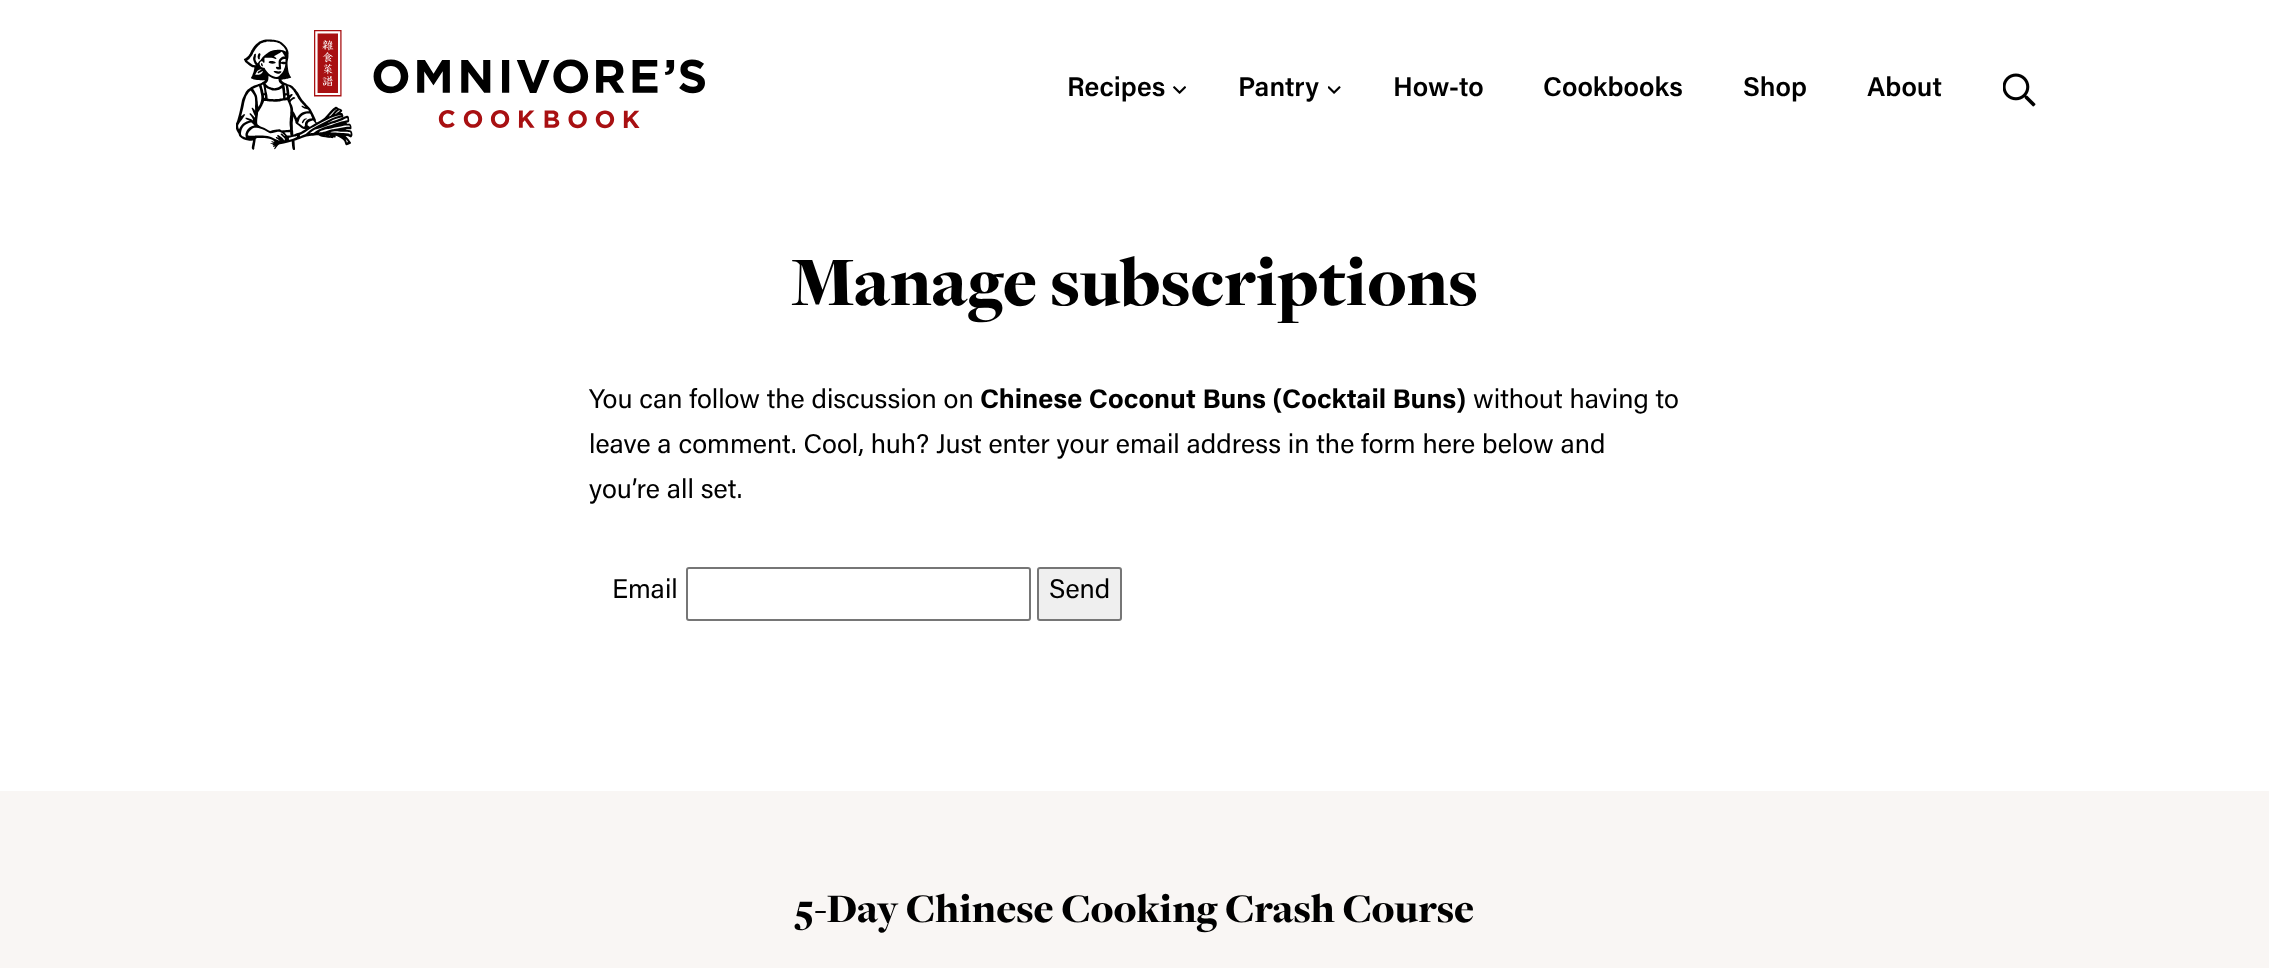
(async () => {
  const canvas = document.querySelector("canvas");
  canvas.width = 2269;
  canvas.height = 968;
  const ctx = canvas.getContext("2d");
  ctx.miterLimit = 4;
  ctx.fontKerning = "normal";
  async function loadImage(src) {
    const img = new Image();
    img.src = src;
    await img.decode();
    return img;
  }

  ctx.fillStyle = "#ffffff";
  ctx.fillRect(0, 0, 2269, 968);
  ctx.drawImage(await loadImage("img/1.png"), 236, 30, 469, 120);
  ctx.drawImage(await loadImage("img/2.png"), 1173, 86, 13, 8);
  ctx.drawImage(await loadImage("img/3.png"), 1328, 86, 13, 8);
  ctx.drawImage(await loadImage("img/4.png"), 2003, 73, 33, 34);
  ctx.beginPath();
  ctx.roundRect(687, 568, 343, 52, 2);
  ctx.strokeStyle = "#767676";
  ctx.lineWidth = 2;
  ctx.stroke();
  ctx.fillStyle = "#efefef";
  ctx.beginPath();
  ctx.roundRect(1038, 568, 83, 52, 2);
  ctx.fill();
  ctx.stroke();
  ctx.fillStyle = "#f9f6f4";
  ctx.fillRect(0, 791, 2269, 177);
  ctx.font = "600 27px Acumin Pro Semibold";
  ctx.fillStyle = "#000000";
  for (const [text, x, y] of [
    ["Recipes", 1067, 96],
    ["Pantry", 1238, 96],
    ["How-to", 1393, 96],
    ["Cookbooks", 1543, 96],
    ["Shop", 1743, 96],
    ["About", 1867, 96],
  ]) {
    ctx.fillText(text, x, y);
  }
  ctx.font = "900 72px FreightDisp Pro";
  ctx.fillText("Manage subscriptions", 791, 305);
  ctx.font = "27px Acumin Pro";
  ctx.fillText("You can follow the discussion on", 589, 408);
  ctx.font = "bold 27px Acumin Pro";
  ctx.fillText("Chinese Coconut Buns (Cocktail Buns)", 980, 408);
  ctx.font = "27px Acumin Pro";
  for (const [text, x, y] of [
    ["without having to", 1473, 408],
    ["leave a comment. Cool, huh? Just enter your email address in the form here below and", 589, 453],
    ["you’re all set.", 589, 498],
    ["Email", 612, 598],
    ["Send", 1049, 598],
  ]) {
    ctx.fillText(text, x, y);
  }
  ctx.font = "900 42px FreightDisp Pro";
  ctx.fillText("5-Day Chinese Cooking Crash Course", 795, 922);
})();
